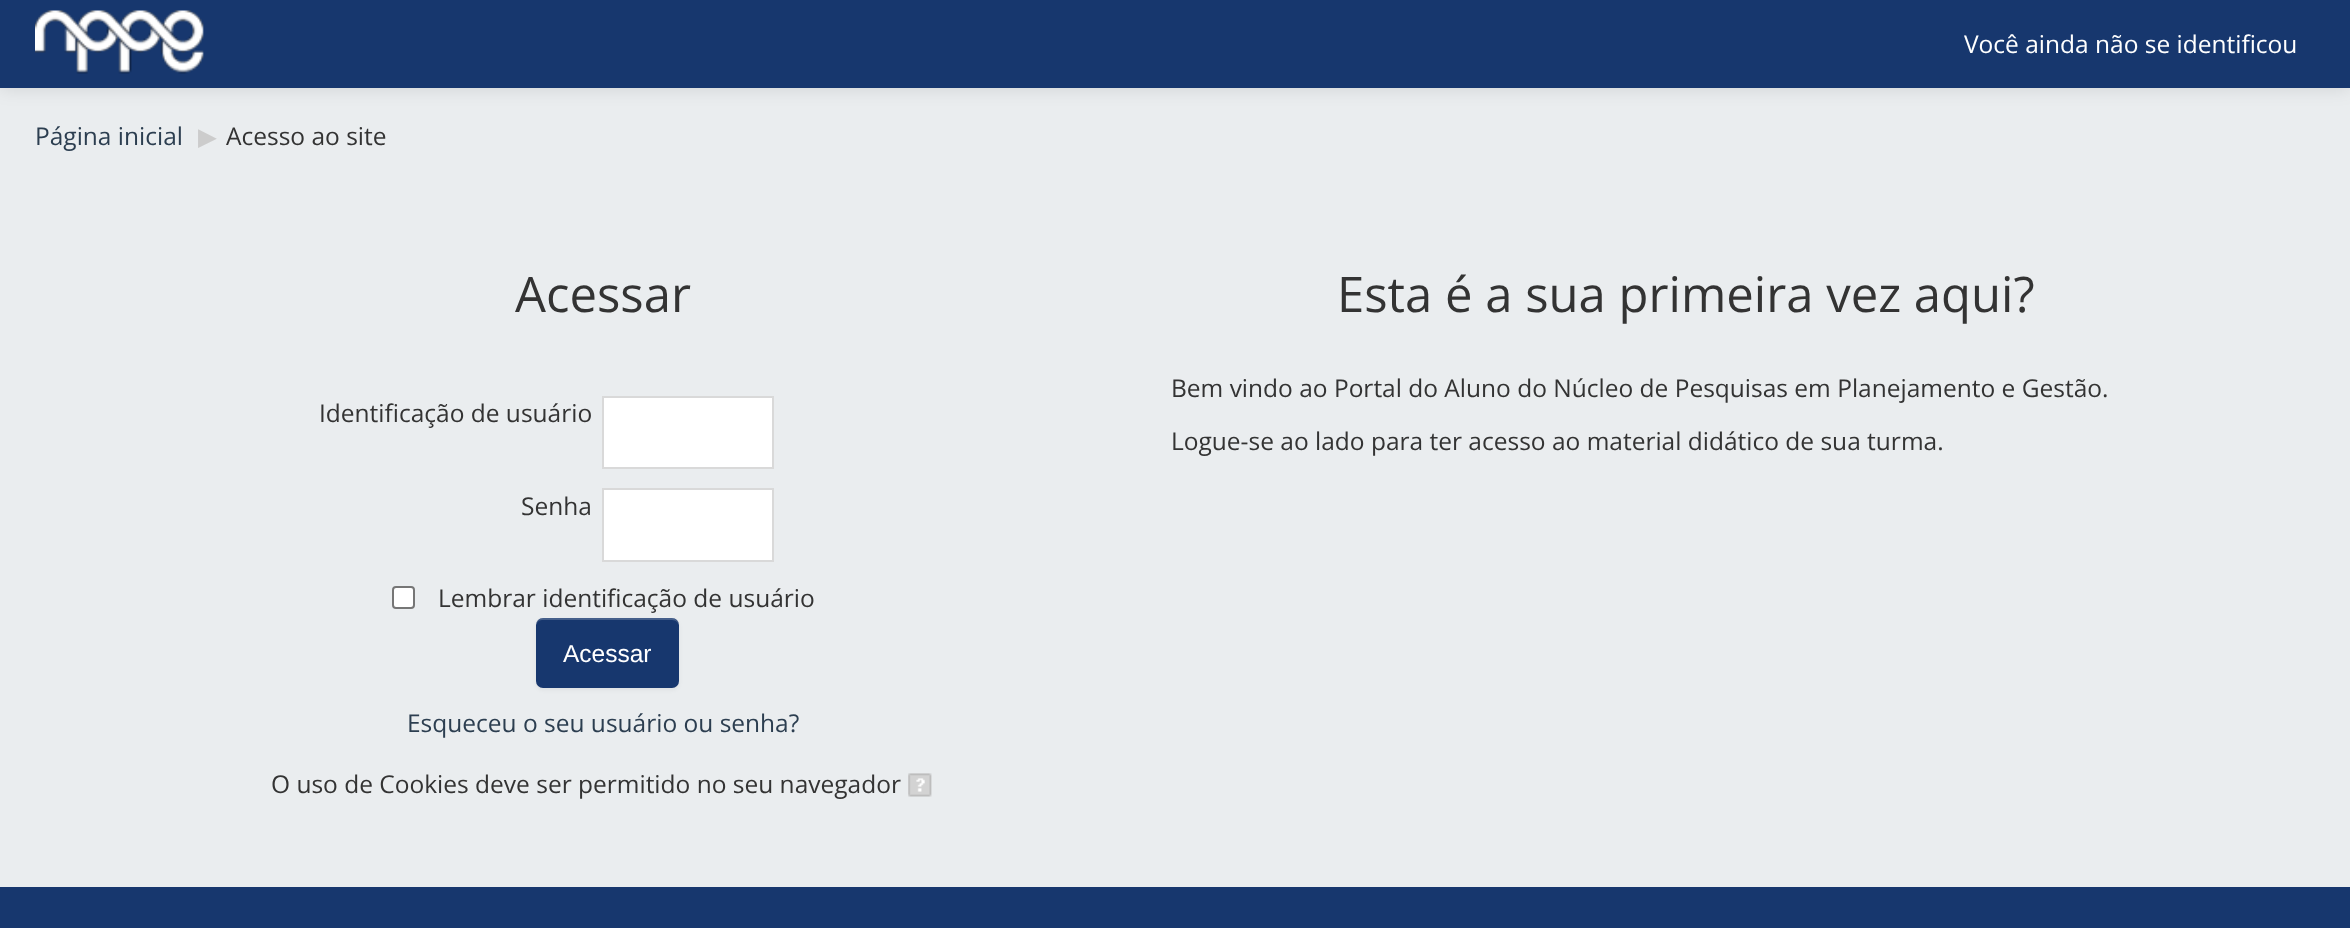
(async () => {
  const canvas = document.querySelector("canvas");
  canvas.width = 2350;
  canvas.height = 928;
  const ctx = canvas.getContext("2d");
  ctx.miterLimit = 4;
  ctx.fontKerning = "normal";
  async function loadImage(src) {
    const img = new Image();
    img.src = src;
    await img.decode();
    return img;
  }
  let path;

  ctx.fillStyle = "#eaedef";
  ctx.fillRect(0, 0, 2350, 928);
  ctx.fillStyle = "rgba(0, 0, 0, 0.1)";
  ctx.filter = "blur(9px)";
  ctx.beginPath();
  ctx.rect(0, 2, 2350, 87);
  ctx.fill();
  ctx.filter = "none";
  ctx.fillStyle = "#17376e";
  ctx.fillRect(0, 0, 2350, 88);
  ctx.drawImage(await loadImage("img/1.png"), 35, 10, 169, 64);
  ctx.fillStyle = "#ffffff";
  ctx.beginPath();
  ctx.rect(603, 397, 170, 71);
  ctx.fill();
  ctx.strokeStyle = "#d9d9d9";
  ctx.lineWidth = 2;
  ctx.stroke();
  ctx.beginPath();
  ctx.rect(603, 489, 170, 72);
  ctx.fill();
  ctx.stroke();
  ctx.beginPath();
  ctx.roundRect(393, 587, 21, 21, 3);
  ctx.fill();
  ctx.strokeStyle = "#767676";
  ctx.stroke();
  ctx.fillStyle = "rgba(0, 0, 0, 0.05)";
  ctx.filter = "blur(2px)";
  ctx.beginPath();
  ctx.roundRect(536, 620, 143, 70, 7);
  ctx.fill();
  ctx.filter = "none";
  ctx.fillStyle = "#17376e";
  ctx.beginPath();
  ctx.roundRect(536, 618, 143, 70, 7);
  ctx.fill();
  ctx.fillStyle = "rgba(255, 255, 255, 0.2)";
  path = new Path2D("M542 620H672C676 620 679 623 679 626C679 613 657 618 650 618H564C558 618 536 613 536 626C536 623 539 620 542 620Z");
  ctx.fill(path);
  ctx.drawImage(await loadImage("img/2.png"), 908, 773, 24, 24);
  ctx.fillStyle = "#17376e";
  ctx.fillRect(0, 887, 2350, 41);
  ctx.font = "24.5px Open Sans";
  ctx.fillStyle = "#ffffff";
  ctx.fillText("Você ainda não se identificou", 1964, 53);
  ctx.fillStyle = "#2c3e50";
  ctx.fillText("Página inicial", 35, 145);
  ctx.font = "24.5px DejaVu Sans";
  ctx.fillStyle = "#cccccc";
  ctx.fillText("▶︎", 198, 145);
  ctx.font = "24.5px Open Sans";
  ctx.fillStyle = "#333333";
  ctx.fillText("Acesso ao site", 226, 145);
  ctx.font = "49px Open Sans";
  ctx.fillText("Acessar", 515, 312);
  ctx.font = "24.5px Open Sans";
  for (const [text, x, y] of [
    ["Identificação de usuário", 319, 422],
    ["Senha", 521, 515],
    ["Lembrar identificação de usuário", 438, 607],
  ]) {
    ctx.fillText(text, x, y);
  }
  ctx.font = "24.5px Liberation Sans";
  ctx.fillStyle = "#ffffff";
  ctx.fillText("Acessar", 563, 662);
  ctx.font = "24.5px Open Sans";
  ctx.fillStyle = "#2c3e50";
  ctx.fillText("Esqueceu o seu usuário ou senha?", 407, 732);
  ctx.fillStyle = "#333333";
  ctx.fillText("O uso de Cookies deve ser permitido no seu navegador", 271, 793);
  ctx.font = "49px Open Sans";
  ctx.fillText("Esta é a sua primeira vez aqui?", 1337, 312);
  ctx.font = "24.5px Open Sans";
  ctx.fillText("Bem vindo ao Portal do Aluno do Núcleo de Pesquisas em Planejamento e Gestão.", 1171, 397);
  ctx.fillText("Logue-se ao lado para ter acesso ao material didático de sua turma.", 1171, 450);
})();
